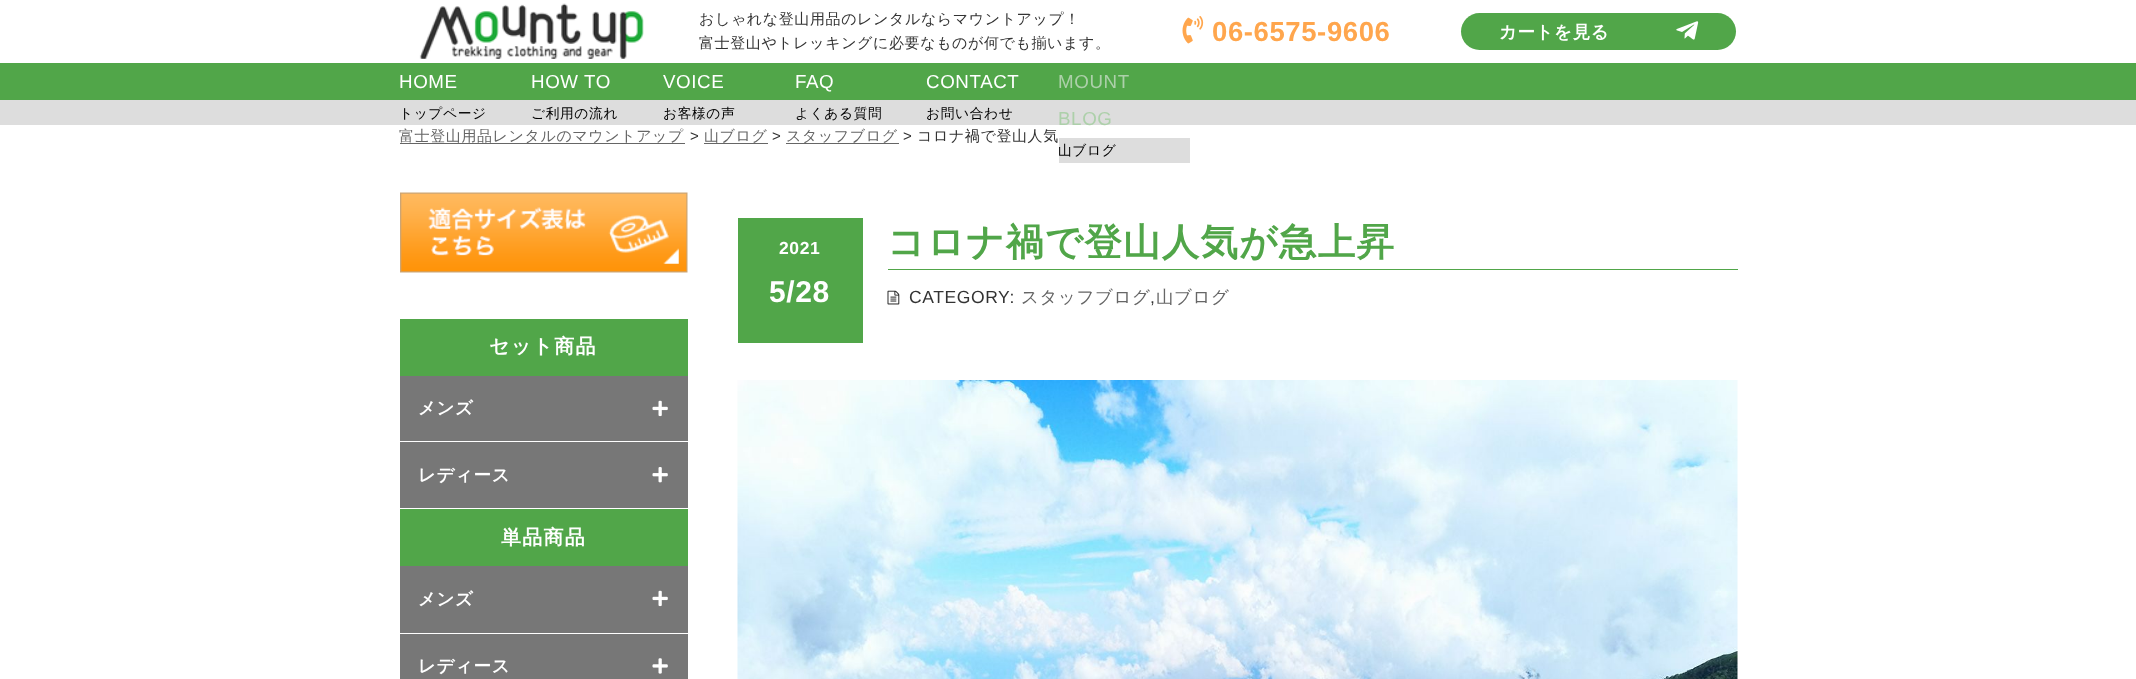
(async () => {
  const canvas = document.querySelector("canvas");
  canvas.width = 2136;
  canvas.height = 679;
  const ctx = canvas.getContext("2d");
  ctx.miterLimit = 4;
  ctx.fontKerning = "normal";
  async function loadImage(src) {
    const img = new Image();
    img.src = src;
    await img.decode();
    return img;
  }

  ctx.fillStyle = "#ffffff";
  ctx.fillRect(0, 0, 2136, 679);
  ctx.drawImage(await loadImage("img/1.png"), 419, 3, 225, 56);
  ctx.drawImage(await loadImage("img/2.png"), 1182, 16, 22, 28);
  ctx.fillStyle = "#51a649";
  ctx.beginPath();
  ctx.roundRect(1461, 13, 275, 37, 18.5);
  ctx.fill();
  ctx.drawImage(await loadImage("img/3.png"), 1676, 21, 23, 19);
  for (const [x, y, w, h, color] of [
    [0, 63, 2136, 37, "#51a649"],
    [1059, 138, 131, 25, "#dddddd"],
    [0, 100, 2136, 25, "#dddddd"],
    [400, 143, 285, 1, "#666666"],
    [704, 143, 64, 1, "#666666"],
    [786, 143, 113, 1, "#666666"],
    [738, 218, 125, 125, "#51a649"],
    [888, 269, 850, 1, "#51a649"],
  ]) {
    ctx.fillStyle = color;
    ctx.fillRect(x, y, w, h);
  }
  ctx.drawImage(await loadImage("img/4.png"), 887, 290, 13, 15);
  ctx.drawImage(await loadImage("img/5.png"), 737, 380, 1001, 299);
  ctx.drawImage(await loadImage("img/6.png"), 400, 192, 288, 81);
  for (const [x, y, w, h, color] of [
    [400, 319, 288, 57, "#51a649"],
    [400, 376, 288, 132, "#777777"],
    [400, 441, 288, 1, "#ffffff"],
  ]) {
    ctx.fillStyle = color;
    ctx.fillRect(x, y, w, h);
  }
  ctx.drawImage(await loadImage("img/7.png"), 652, 400, 16, 17);
  ctx.drawImage(await loadImage("img/8.png"), 652, 467, 16, 16);
  ctx.fillStyle = "#51a649";
  ctx.fillRect(400, 509, 288, 57);
  ctx.fillStyle = "#777777";
  ctx.fillRect(400, 566, 288, 67);
  ctx.drawImage(await loadImage("img/7.png"), 652, 590, 16, 17);
  ctx.fillRect(400, 634, 288, 45);
  ctx.drawImage(await loadImage("img/9.png"), 652, 658, 16, 16);
  ctx.letterSpacing = "0.6px";
  ctx.font = "500 15px WenQuanYi Zen Hei";
  ctx.fillStyle = "#333333";
  ctx.fillText("おしゃれな登山用品のレンタルならマウントアップ！", 699, 24);
  ctx.fillText("富士登山やトレッキングに必要なものが何でも揃います。", 699, 48);
  ctx.font = "bold 27.5px Liberation Sans";
  ctx.fillStyle = "#ffa64d";
  ctx.fillText("06-6575-9606", 1212, 41);
  ctx.font = "bold 17.5px WenQuanYi Zen Hei";
  ctx.fillStyle = "#ffffff";
  ctx.fillText("カートを見る", 1499, 38);
  ctx.font = "18.75px Liberation Sans";
  ctx.fillText("HOME", 399, 88);
  ctx.font = "500 13.75px WenQuanYi Zen Hei";
  ctx.fillStyle = "#000000";
  ctx.fillText("トップページ", 399, 118);
  ctx.font = "18.75px Liberation Sans";
  ctx.fillStyle = "#ffffff";
  ctx.fillText("HOW TO", 531, 88);
  ctx.font = "500 13.75px WenQuanYi Zen Hei";
  ctx.fillStyle = "#000000";
  ctx.fillText("ご利用の流れ", 531, 118);
  ctx.font = "18.75px Liberation Sans";
  ctx.fillStyle = "#ffffff";
  ctx.fillText("VOICE", 663, 88);
  ctx.font = "500 13.75px WenQuanYi Zen Hei";
  ctx.fillStyle = "#000000";
  ctx.fillText("お客様の声", 663, 118);
  ctx.font = "18.75px Liberation Sans";
  ctx.fillStyle = "#ffffff";
  ctx.fillText("FAQ", 795, 88);
  ctx.font = "500 13.75px WenQuanYi Zen Hei";
  ctx.fillStyle = "#000000";
  ctx.fillText("よくある質問", 795, 118);
  ctx.font = "18.75px Liberation Sans";
  ctx.fillStyle = "#ffffff";
  ctx.fillText("CONTACT", 926, 88);
  ctx.font = "500 13.75px WenQuanYi Zen Hei";
  ctx.fillStyle = "#000000";
  ctx.fillText("お問い合わせ", 926, 118);
  ctx.font = "18.75px Liberation Sans";
  ctx.fillStyle = "#add0aa";
  ctx.fillText("MOUNT", 1058, 88);
  ctx.fillText("BLOG", 1058, 125);
  ctx.font = "500 13.75px WenQuanYi Zen Hei";
  ctx.fillStyle = "#000000";
  ctx.fillText("山ブログ", 1058, 155);
  ctx.font = "500 15px WenQuanYi Zen Hei";
  ctx.fillStyle = "#666666";
  ctx.fillText("富士登山用品レンタルのマウントアップ", 399, 141);
  ctx.font = "15px Liberation Sans";
  ctx.fillStyle = "#333333";
  ctx.fillText(">", 690, 141);
  ctx.font = "500 15px WenQuanYi Zen Hei";
  ctx.fillStyle = "#666666";
  ctx.fillText("山ブログ", 704, 141);
  ctx.font = "15px Liberation Sans";
  ctx.fillStyle = "#333333";
  ctx.fillText(">", 772, 141);
  ctx.font = "500 15px WenQuanYi Zen Hei";
  ctx.fillStyle = "#666666";
  ctx.fillText("スタッフブログ", 786, 141);
  ctx.font = "15px Liberation Sans";
  ctx.fillStyle = "#333333";
  ctx.fillText(">", 903, 141);
  ctx.font = "500 15px WenQuanYi Zen Hei";
  ctx.fillText("コロナ禍で登山人気", 917, 141);
  ctx.font = "bold 17.5px Liberation Sans";
  ctx.fillStyle = "#ffffff";
  ctx.fillText("2021", 779, 254);
  ctx.font = "bold 30px Liberation Sans";
  ctx.fillText("5/28", 769, 302);
  ctx.letterSpacing = "1.25px";
  ctx.font = "bold 37.5px WenQuanYi Zen Hei";
  ctx.fillStyle = "#51a649";
  ctx.fillText("コロナ禍で登山人気が急上昇", 887, 255);
  ctx.letterSpacing = "0.6px";
  ctx.font = "17.5px Liberation Sans";
  ctx.fillStyle = "#333333";
  ctx.fillText("CATEGORY:", 909, 303);
  ctx.font = "500 17.5px WenQuanYi Zen Hei";
  ctx.fillStyle = "#666666";
  ctx.fillText("スタッフブログ", 1021, 303);
  ctx.font = "17.5px Liberation Sans";
  ctx.fillStyle = "#333333";
  ctx.fillText(",", 1150, 303);
  ctx.font = "500 17.5px WenQuanYi Zen Hei";
  ctx.fillStyle = "#666666";
  ctx.fillText("山ブログ", 1156, 303);
  ctx.letterSpacing = "1.25px";
  ctx.font = "bold 20px WenQuanYi Zen Hei";
  ctx.fillStyle = "#ffffff";
  ctx.fillText("セット商品", 489, 353);
  ctx.letterSpacing = "0.6px";
  ctx.font = "bold 17.5px WenQuanYi Zen Hei";
  ctx.fillText("メンズ", 418, 414);
  ctx.fillText("レディース", 418, 481);
  ctx.letterSpacing = "1.25px";
  ctx.font = "bold 20px WenQuanYi Zen Hei";
  ctx.fillText("単品商品", 501, 544);
  ctx.letterSpacing = "0.6px";
  ctx.font = "bold 17.5px WenQuanYi Zen Hei";
  ctx.fillText("メンズ", 418, 605);
  ctx.fillText("レディース", 418, 672);
})();
